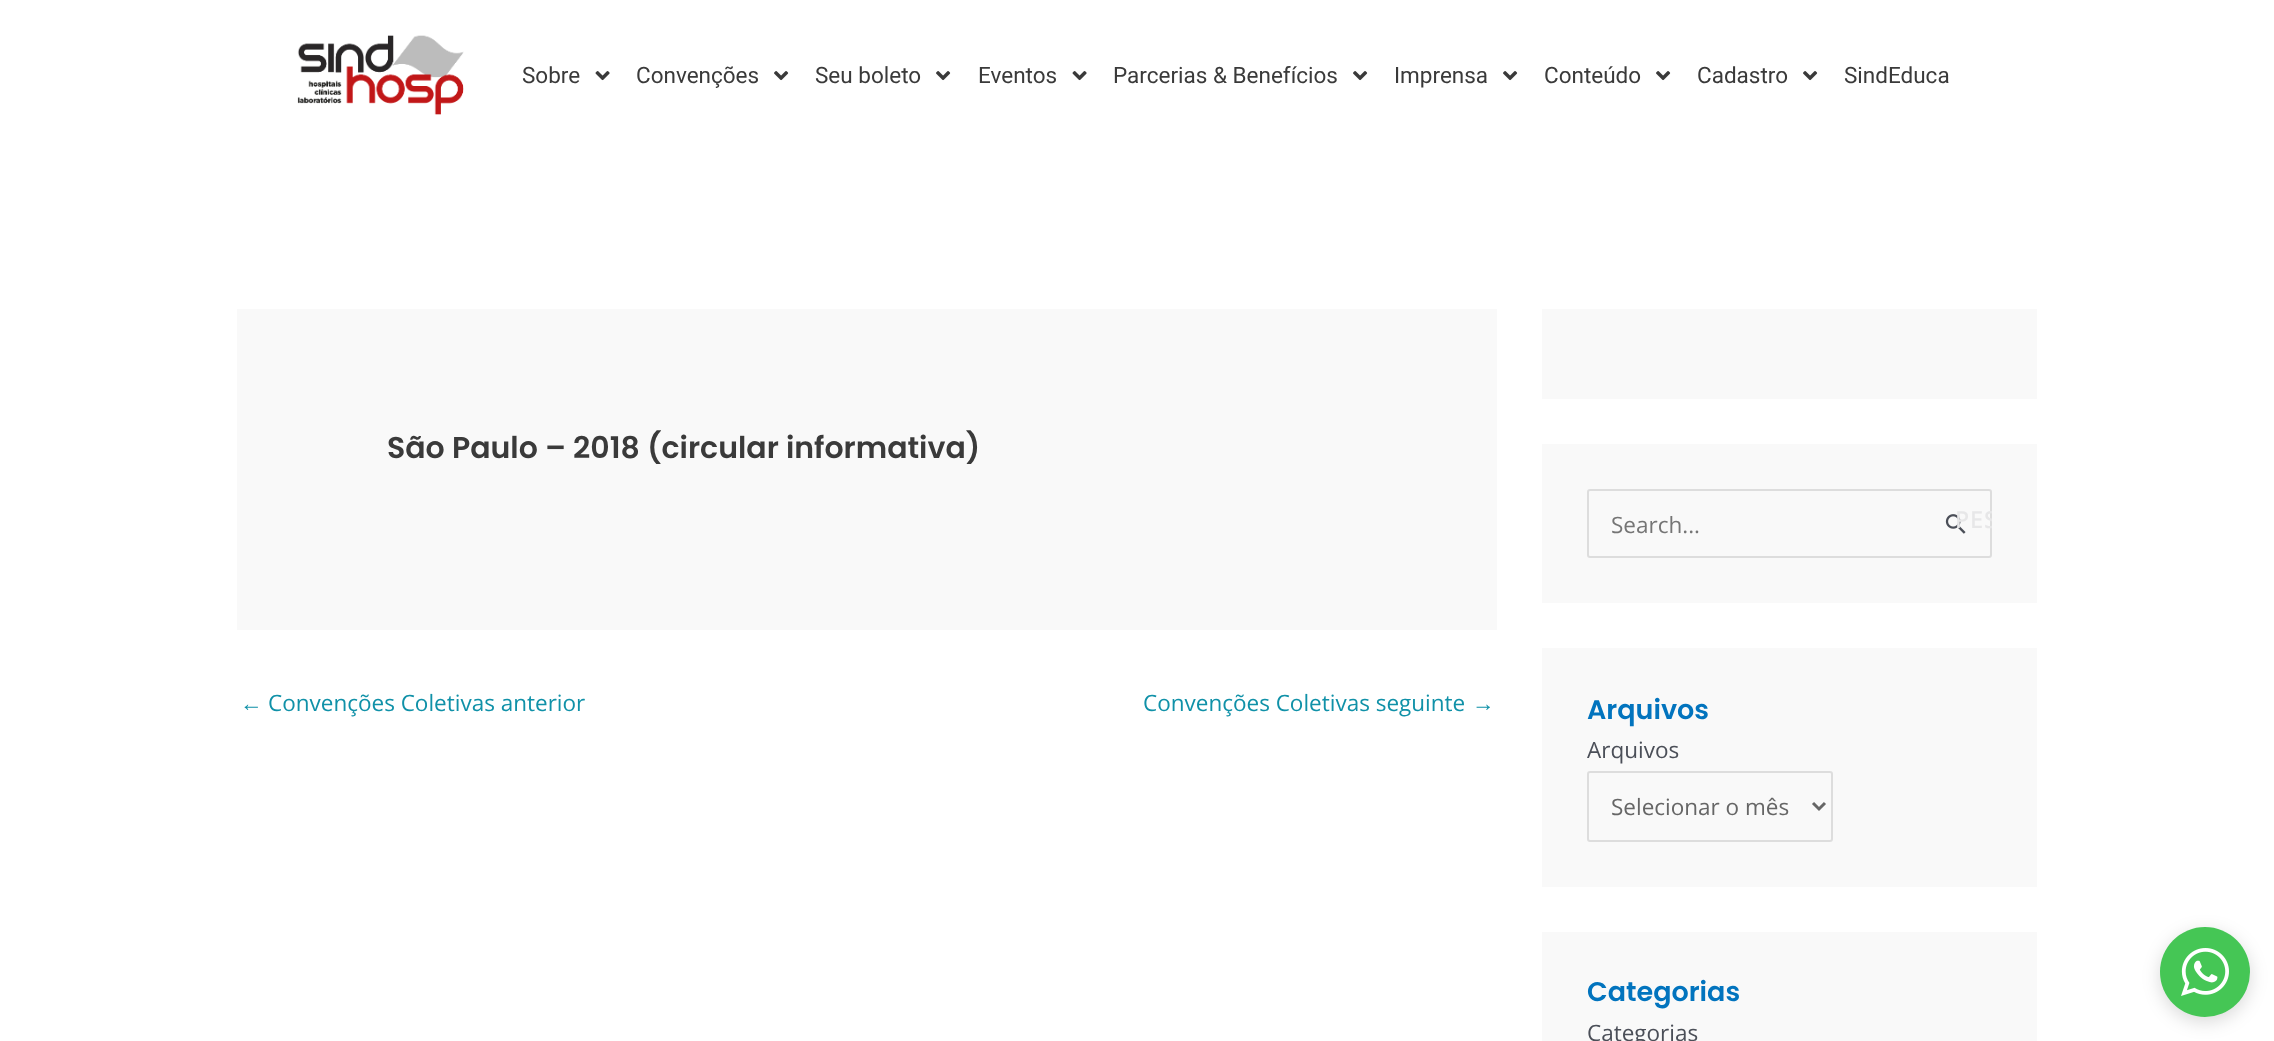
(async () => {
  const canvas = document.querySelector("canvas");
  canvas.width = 2274;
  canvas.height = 1041;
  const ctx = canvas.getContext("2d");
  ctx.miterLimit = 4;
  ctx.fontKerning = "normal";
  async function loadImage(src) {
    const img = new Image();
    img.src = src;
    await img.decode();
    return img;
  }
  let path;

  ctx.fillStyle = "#ffffff";
  ctx.fillRect(0, 0, 2274, 1041);
  ctx.drawImage(await loadImage("img/1.png"), 297, 35, 167, 80);
  ctx.drawImage(await loadImage("img/2.png"), 595, 71, 15, 10);
  ctx.drawImage(await loadImage("img/3.png"), 774, 71, 15, 10);
  ctx.drawImage(await loadImage("img/3.png"), 936, 71, 15, 10);
  ctx.drawImage(await loadImage("img/2.png"), 1072, 71, 15, 10);
  ctx.drawImage(await loadImage("img/3.png"), 1353, 71, 15, 10);
  ctx.drawImage(await loadImage("img/3.png"), 1503, 71, 15, 10);
  ctx.drawImage(await loadImage("img/3.png"), 1656, 71, 15, 10);
  ctx.drawImage(await loadImage("img/3.png"), 1803, 71, 15, 10);
  for (const [x, y, w, h, color] of [
    [237, 309, 1260, 321, "#f9f9f9"],
    [1542, 309, 495, 90, "#f9f9f9"],
    [1542, 444, 495, 159, "#f9f9f9"],
  ]) {
    ctx.fillStyle = color;
    ctx.fillRect(x, y, w, h);
  }
  ctx.beginPath();
  ctx.roundRect(1588, 490, 403, 67, 2);
  ctx.strokeStyle = "#dddddd";
  ctx.lineWidth = 2;
  ctx.stroke();
  ctx.drawImage(await loadImage("img/4.png"), 1945, 514, 21, 20);
  ctx.fillRect(1542, 648, 495, 239);
  ctx.beginPath();
  ctx.roundRect(1588, 772, 244, 69, 2);
  ctx.stroke();
  path = new Path2D("M1813 803L1819 809L1825 803");
  ctx.strokeStyle = "#666666";
  ctx.lineWidth = 3;
  ctx.stroke(path);
  ctx.fillRect(1542, 932, 495, 109);
  ctx.fillStyle = "rgba(0, 0, 0, 0.15)";
  ctx.filter = "blur(9px)";
  ctx.beginPath();
  ctx.roundRect(2160, 932, 90, 90, 45);
  ctx.fill();
  ctx.filter = "none";
  ctx.fillStyle = "#45c655";
  ctx.beginPath();
  ctx.arc(2205, 972, 45, 0, Math.PI * 2);
  ctx.fill();
  ctx.drawImage(await loadImage("img/5.png"), 2181, 948, 48, 48);
  ctx.font = "22.5px Roboto";
  ctx.fillStyle = "#3a3a3a";
  for (const [text, x, y] of [
    ["Sobre", 522, 83],
    ["Convenções", 636, 83],
    ["Seu boleto", 815, 83],
    ["Eventos", 978, 83],
    ["Parcerias & Benefícios", 1113, 83],
    ["Imprensa", 1394, 83],
    ["Conteúdo", 1544, 83],
    ["Cadastro", 1697, 83],
    ["SindEduca", 1844, 83],
  ]) {
    ctx.fillText(text, x, y);
  }
  ctx.font = "600 30px Poppins";
  ctx.fillText("São Paulo – 2018 (circular informativa)", 387, 458);
  ctx.font = "22.5px Liberation Sans";
  ctx.fillStyle = "#1091a8";
  ctx.fillText("←", 240, 711);
  ctx.font = "22.5px Open Sans";
  ctx.fillText("Convenções Coletivas anterior", 268, 711);
  ctx.fillText("Convenções Coletivas seguinte", 1143, 711);
  ctx.font = "22.5px Liberation Sans";
  ctx.fillText("→", 1472, 711);
  ctx.font = "22.5px Open Sans";
  ctx.fillStyle = "#757575";
  ctx.fillText("Search...", 1611, 533);
  ctx.save();
  ctx.beginPath();
  ctx.roundRect(1925, 489, 67, 62, 3);
  ctx.clip();
  ctx.letterSpacing = "1.5px";
  ctx.font = "bold 22.5px Open Sans";
  ctx.fillStyle = "#e7e7e8";
  ctx.fillText("PES", 1955, 528);
  ctx.restore();
  ctx.font = "600 27px Poppins";
  ctx.fillStyle = "#0274be";
  ctx.fillText("Arquivos", 1587, 719);
  ctx.font = "22.5px Open Sans";
  ctx.fillStyle = "#4b4f58";
  ctx.fillText("Arquivos", 1587, 758);
  ctx.fillStyle = "#666666";
  ctx.fillText("Selecionar o mês", 1611, 815);
  ctx.font = "600 27px Poppins";
  ctx.fillStyle = "#0274be";
  ctx.fillText("Categorias", 1587, 1001);
  ctx.font = "22.5px Open Sans";
  ctx.fillStyle = "#4b4f58";
  ctx.fillText("Categorias", 1587, 1041);
})();
